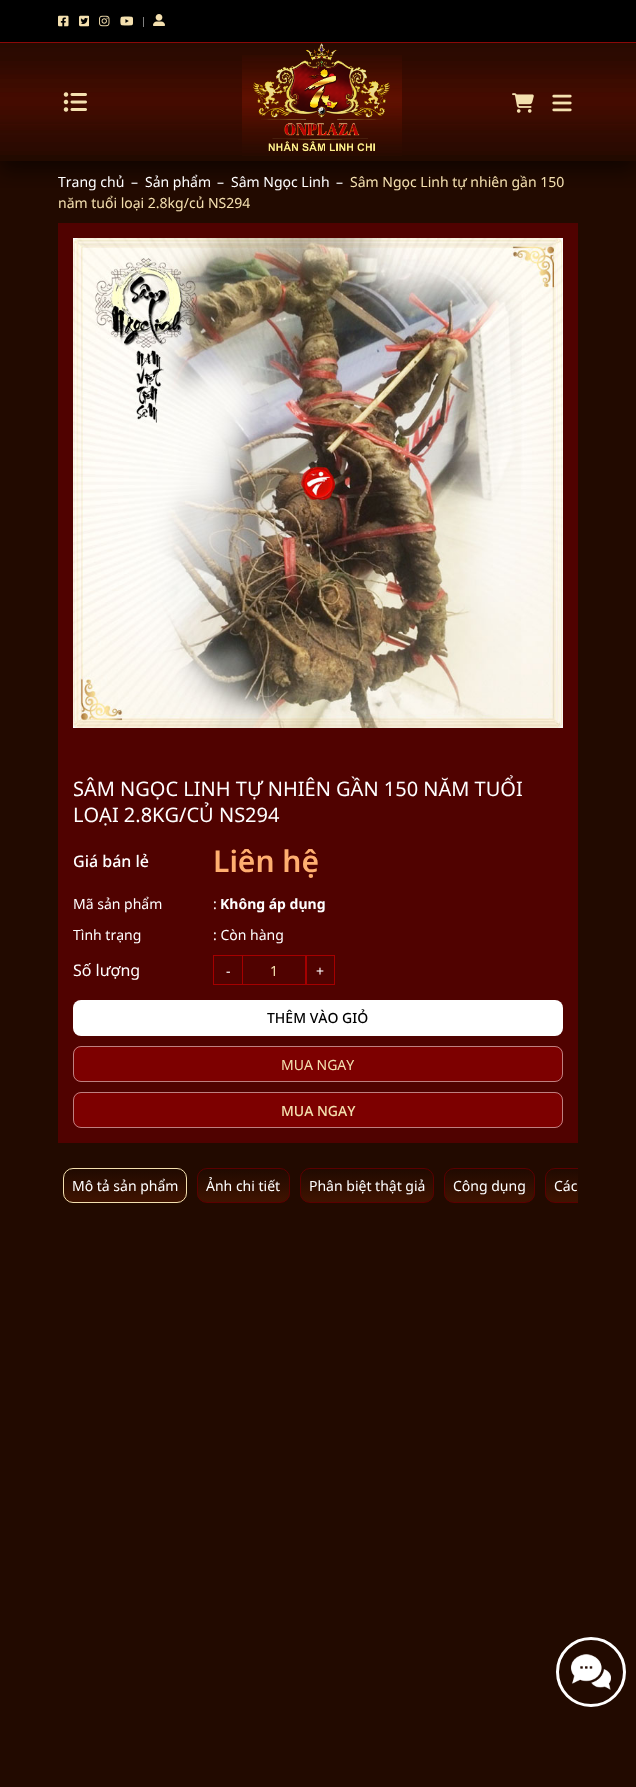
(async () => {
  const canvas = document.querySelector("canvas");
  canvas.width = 636;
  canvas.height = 1787;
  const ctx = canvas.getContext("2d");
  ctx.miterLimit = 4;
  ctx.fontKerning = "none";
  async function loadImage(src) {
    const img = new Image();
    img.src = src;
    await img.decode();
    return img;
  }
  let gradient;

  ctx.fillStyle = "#220a00";
  ctx.fillRect(0, 0, 636, 1787);
  ctx.save();
  ctx.beginPath();
  ctx.rect(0, 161, 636, 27);
  ctx.clip();
  ctx.fillStyle = "rgba(0, 0, 0, 0.5)";
  ctx.filter = "blur(10px)";
  ctx.beginPath();
  ctx.rect(0, 10, 636, 161);
  ctx.fill();
  ctx.filter = "none";
  ctx.restore();
  ctx.fillStyle = "#000000";
  ctx.fillRect(0, 0, 636, 42);
  ctx.fillStyle = "#8b0908";
  ctx.fillRect(0, 42, 636, 1);
  ctx.drawImage(await loadImage("img/1.png"), 58, 15, 11, 12);
  ctx.drawImage(await loadImage("img/2.png"), 79, 15, 10, 12);
  ctx.drawImage(await loadImage("img/3.png"), 99, 15, 11, 12);
  ctx.drawImage(await loadImage("img/4.png"), 120, 16, 13, 10);
  ctx.fillStyle = "#808080";
  ctx.fillRect(143, 17, 1, 10);
  ctx.drawImage(await loadImage("img/5.png"), 153, 14, 12, 12);
  ctx.drawImage(await loadImage("img/6.png"), 0, 43, 636, 112);
  ctx.drawImage(await loadImage("img/7.png"), 63, 92, 24, 20);
  ctx.drawImage(await loadImage("img/8.png"), 242, 55, 160, 101);
  ctx.drawImage(await loadImage("img/9.png"), 253, 43, 137, 109);
  ctx.drawImage(await loadImage("img/10.png"), 512, 93, 22, 20);
  ctx.drawImage(await loadImage("img/11.png"), 552, 94, 20, 18);
  ctx.fillStyle = "#500200";
  ctx.fillRect(58, 223, 520, 920);
  ctx.drawImage(await loadImage("img/12.png"), 73, 238, 490, 490);
  ctx.strokeStyle = "#a50000";
  ctx.strokeRect(242.5, 955.5, 64, 29);
  ctx.strokeRect(213.5, 955.5, 29, 29);
  ctx.strokeRect(305.5, 955.5, 29, 29);
  ctx.fillStyle = "#ffffff";
  ctx.beginPath();
  ctx.roundRect(73, 1000, 490, 36, 8);
  ctx.fill();
  ctx.fillStyle = "#7d0000";
  ctx.beginPath();
  ctx.roundRect(73, 1046, 490, 36, 8);
  ctx.fill();
  ctx.beginPath();
  ctx.roundRect(73.5, 1046.5, 489, 35, 7.5);
  ctx.strokeStyle = "rgba(255, 255, 255, 0.5)";
  ctx.stroke();
  ctx.beginPath();
  ctx.roundRect(73, 1092, 490, 36, 8);
  ctx.fill();
  ctx.beginPath();
  ctx.roundRect(73.5, 1092.5, 489, 35, 7.5);
  ctx.stroke();
  ctx.save();
  ctx.beginPath();
  ctx.roundRect(63, 1168, 124, 35, 10);
  ctx.clip();
  gradient = ctx.createLinearGradient(125, 1169, 125, 1202);
  gradient.addColorStop(0, "#200a01");
  gradient.addColorStop(1, "#401300");
  ctx.fillStyle = gradient;
  ctx.fillRect(63, 1169, 124, 33);
  ctx.restore();
  ctx.beginPath();
  ctx.roundRect(63.5, 1168.5, 123, 34, 9.5);
  ctx.strokeStyle = "#f4e0af";
  ctx.stroke();
  ctx.save();
  ctx.beginPath();
  ctx.roundRect(197, 1168, 93, 35, 10);
  ctx.clip();
  gradient = ctx.createLinearGradient(244, 1169, 244, 1202);
  gradient.addColorStop(0, "#200a01");
  gradient.addColorStop(1, "#401300");
  ctx.fillStyle = gradient;
  ctx.fillRect(197, 1169, 93, 33);
  ctx.restore();
  ctx.beginPath();
  ctx.roundRect(197.5, 1168.5, 92, 34, 9.5);
  ctx.strokeStyle = "#5b0000";
  ctx.stroke();
  ctx.save();
  ctx.beginPath();
  ctx.roundRect(300, 1168, 134, 35, 10);
  ctx.clip();
  gradient = ctx.createLinearGradient(367, 1169, 367, 1202);
  gradient.addColorStop(0, "#200a01");
  gradient.addColorStop(1, "#401300");
  ctx.fillStyle = gradient;
  ctx.fillRect(300, 1169, 134, 33);
  ctx.restore();
  ctx.beginPath();
  ctx.roundRect(300.5, 1168.5, 133, 34, 9.5);
  ctx.stroke();
  ctx.save();
  ctx.beginPath();
  ctx.roundRect(444, 1168, 91, 35, 10);
  ctx.clip();
  gradient = ctx.createLinearGradient(490, 1169, 490, 1202);
  gradient.addColorStop(0, "#200a01");
  gradient.addColorStop(1, "#401300");
  ctx.fillStyle = gradient;
  ctx.fillRect(444, 1169, 91, 33);
  ctx.restore();
  ctx.beginPath();
  ctx.roundRect(444.5, 1168.5, 90, 34, 9.5);
  ctx.stroke();
  ctx.save();
  ctx.beginPath();
  ctx.roundRect(545, 1168, 88, 35, 10);
  ctx.clip();
  gradient = ctx.createLinearGradient(589, 1169, 589, 1202);
  gradient.addColorStop(0, "#200a01");
  gradient.addColorStop(1, "#401300");
  ctx.fillStyle = gradient;
  ctx.fillRect(545, 1169, 33, 33);
  ctx.restore();
  ctx.save();
  ctx.beginPath();
  ctx.rect(63, 1168, 515, 35);
  ctx.clip();
  ctx.beginPath();
  ctx.roundRect(545.5, 1168.5, 87, 34, 9.5);
  ctx.stroke();
  ctx.restore();
  ctx.beginPath();
  ctx.arc(591, 1672, 33.5, 0, Math.PI * 2);
  ctx.strokeStyle = "#ffffff";
  ctx.lineWidth = 3;
  ctx.stroke();
  ctx.drawImage(await loadImage("img/13.png"), 571, 1654, 40, 36);
  ctx.font = "14px Noto Sans";
  ctx.fillStyle = "#ffffff";
  for (const [text, x, y] of [
    ["Trang chủ", 58, 187],
    ["–", 131, 187],
    ["Sản phẩm", 145, 187],
    ["–", 217, 187],
    ["Sâm Ngọc Linh", 231, 187],
    ["–", 336, 187],
  ]) {
    ctx.fillText(text, x, y);
  }
  ctx.fillStyle = "#f4e0af";
  ctx.fillText("Sâm Ngọc Linh tự nhiên gần 150", 350, 187);
  ctx.fillText("năm tuổi loại 2.8kg/củ NS294", 58, 208);
  ctx.font = "20px Noto Sans";
  ctx.fillStyle = "#ffffff";
  ctx.fillText("SÂM NGỌC LINH TỰ NHIÊN GẦN 150 NĂM TUỔI", 73, 796);
  ctx.fillText("LOẠI 2.8KG/CỦ NS294", 73, 822);
  ctx.font = "500 16px Noto Sans";
  ctx.fillText("Giá bán lẻ", 73, 867);
  ctx.font = "600 30px Noto Sans";
  ctx.fillStyle = "#ffaf70";
  ctx.fillText("Liên hệ", 213, 872);
  ctx.font = "14px Noto Sans";
  ctx.fillStyle = "#ffffff";
  ctx.fillText("Mã sản phẩm", 73, 909);
  ctx.fillText(":", 213, 909);
  ctx.font = "bold 14px Noto Sans";
  ctx.fillText("Không áp dụng", 220, 909);
  ctx.font = "14px Noto Sans";
  ctx.fillText("Tình trạng", 73, 940);
  ctx.fillText(": Còn hàng", 213, 940);
  ctx.font = "16px Noto Sans";
  ctx.fillText("Số lượng", 73, 976);
  ctx.font = "14px Noto Sans";
  ctx.fillText("-", 226, 976);
  ctx.fillStyle = "#f4e0af";
  ctx.fillText("1", 270, 976);
  ctx.fillStyle = "#ffffff";
  ctx.fillText("+", 316, 976);
  ctx.font = "500 14px Noto Sans";
  ctx.fillStyle = "#000000";
  ctx.fillText("THÊM VÀO GIỎ", 267, 1023);
  ctx.font = "14px Noto Sans";
  ctx.fillStyle = "#f4e0af";
  ctx.fillText("MUA NGAY", 281, 1070);
  ctx.font = "500 14px Noto Sans";
  ctx.fillText("MUA NGAY", 281, 1116);
  ctx.font = "14px Noto Sans";
  ctx.fillStyle = "#ffffff";
  for (const [text, x, y] of [
    ["Mô tả sản phẩm", 72, 1191],
    ["Ảnh chi tiết", 206, 1191],
    ["Phân biệt thật giả", 309, 1191],
    ["Công dụng", 453, 1191],
    ["Các", 554, 1191],
  ]) {
    ctx.fillText(text, x, y);
  }
})();
